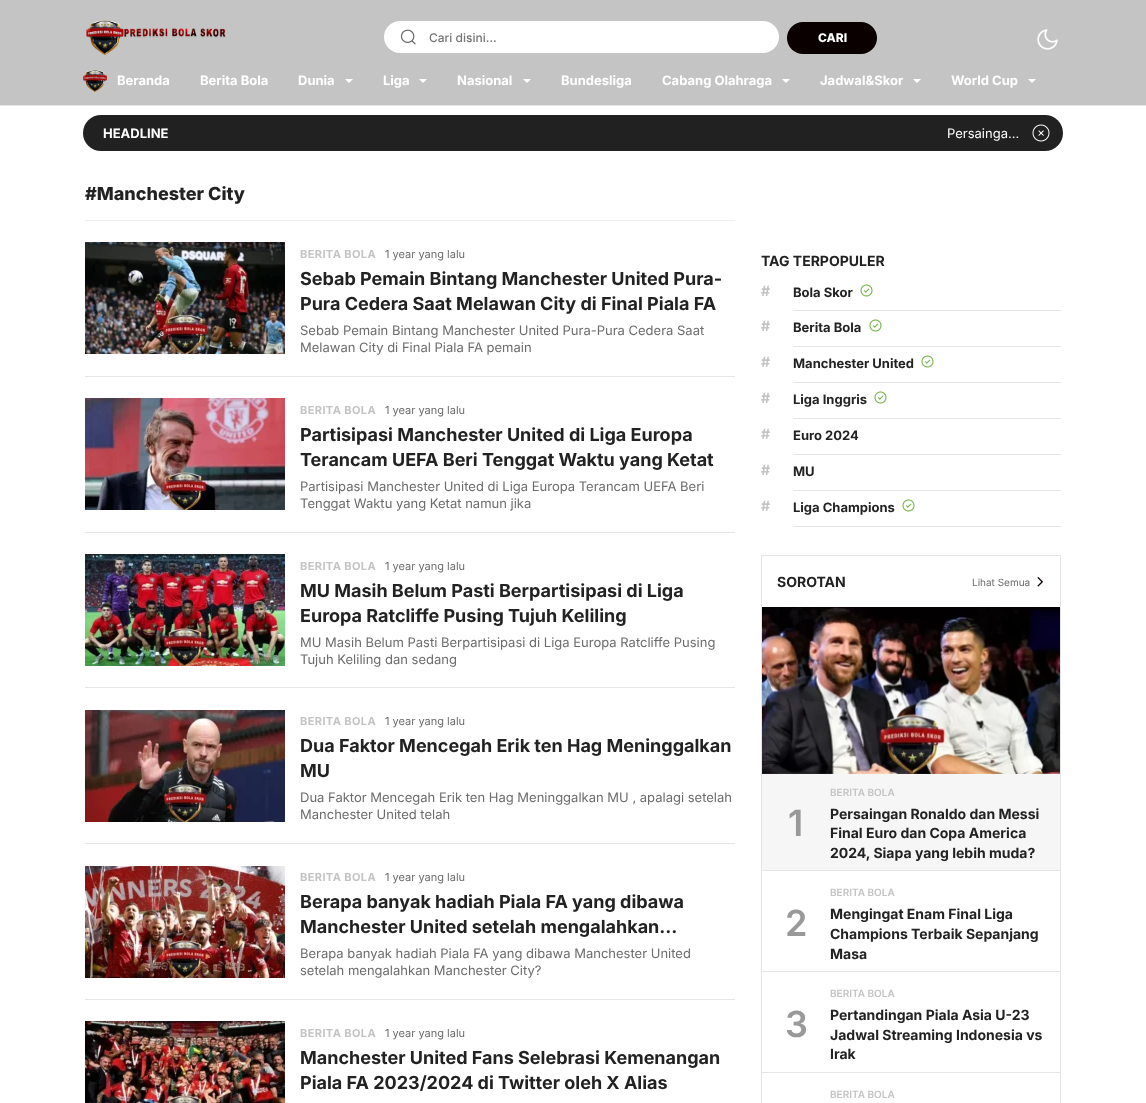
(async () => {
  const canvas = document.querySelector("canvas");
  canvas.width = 1146;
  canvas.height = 1103;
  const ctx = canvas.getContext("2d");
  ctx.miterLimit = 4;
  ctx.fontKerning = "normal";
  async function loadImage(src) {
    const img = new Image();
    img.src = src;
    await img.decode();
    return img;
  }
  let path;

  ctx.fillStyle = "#ffffff";
  ctx.fillRect(0, 0, 1146, 1103);
  ctx.fillStyle = "#c4c4c4";
  ctx.fillRect(0, 0, 1146, 105);
  ctx.drawImage(await loadImage("img/1.png"), 86, 20, 140, 35);
  ctx.fillStyle = "#ffffff";
  ctx.beginPath();
  ctx.roundRect(384, 21, 395, 32, 16);
  ctx.fill();
  ctx.drawImage(await loadImage("img/2.png"), 400, 29, 16, 16);
  ctx.fillStyle = "#0a0000";
  ctx.beginPath();
  ctx.roundRect(787, 22, 90, 32, 16);
  ctx.fill();
  ctx.drawImage(await loadImage("img/3.png"), 1037, 29, 21, 21);
  ctx.fillStyle = "#e6e6e6";
  ctx.fillRect(0, 105, 1146, 1);
  ctx.drawImage(await loadImage("img/4.png"), 83, 70, 24, 22);
  ctx.fillStyle = "#ffffff";
  path = new Path2D("M345 79H353L349 83Z");
  ctx.fill(path);
  path = new Path2D("M419 79H427L423 83Z");
  ctx.fill(path);
  path = new Path2D("M523 79H531L527 83Z");
  ctx.fill(path);
  path = new Path2D("M782 79H790L786 83Z");
  ctx.fill(path);
  path = new Path2D("M913 79H921L917 83Z");
  ctx.fill(path);
  path = new Path2D("M1028 79H1036L1032 83Z");
  ctx.fill(path);
  ctx.fillStyle = "#212121";
  ctx.beginPath();
  ctx.roundRect(83, 115, 980, 36, 18);
  ctx.fill();
  ctx.drawImage(await loadImage("img/5.png"), 1032, 124, 18, 18);
  ctx.fillStyle = "#eeeeee";
  ctx.fillRect(85, 220, 650, 1);
  ctx.drawImage(await loadImage("img/6.png"), 85, 242, 200, 112);
  ctx.fillStyle = "#e5e5e5";
  ctx.fillRect(85, 376, 650, 1);
  ctx.drawImage(await loadImage("img/7.png"), 85, 398, 200, 112);
  ctx.fillRect(85, 532, 650, 1);
  ctx.drawImage(await loadImage("img/8.png"), 85, 554, 200, 112);
  ctx.fillRect(85, 687, 650, 1);
  ctx.drawImage(await loadImage("img/9.png"), 85, 710, 200, 112);
  ctx.fillRect(85, 843, 650, 1);
  ctx.drawImage(await loadImage("img/10.png"), 85, 866, 200, 112);
  ctx.fillRect(85, 999, 650, 1);
  ctx.drawImage(await loadImage("img/11.png"), 85, 1021, 200, 82);
  ctx.fillRect(793, 310, 268, 1);
  ctx.drawImage(await loadImage("img/12.png"), 860, 284, 13, 13);
  ctx.fillRect(793, 346, 268, 1);
  ctx.drawImage(await loadImage("img/12.png"), 869, 319, 13, 13);
  ctx.fillRect(793, 382, 268, 1);
  ctx.drawImage(await loadImage("img/12.png"), 921, 355, 13, 13);
  ctx.fillRect(793, 418, 268, 1);
  ctx.drawImage(await loadImage("img/12.png"), 874, 391, 13, 13);
  for (const [x, y, w, h, color] of [
    [793, 454, 268, 1, "#e5e5e5"],
    [793, 490, 268, 1, "#e5e5e5"],
    [793, 526, 268, 1, "#e5e5e5"],
  ]) {
    ctx.fillStyle = color;
    ctx.fillRect(x, y, w, h);
  }
  ctx.drawImage(await loadImage("img/12.png"), 902, 499, 13, 13);
  ctx.strokeStyle = "#e5e5e5";
  ctx.strokeRect(761.5, 555.5, 299, 52);
  ctx.drawImage(await loadImage("img/13.png"), 1037, 577, 6, 10);
  for (const [x, y, w, h, color] of [
    [762, 773, 298, 97, "#f6f6f6"],
    [1060, 607, 1, 496, "#e5e5e5"],
    [761, 870, 300, 1, "#e5e5e5"],
    [761, 607, 1, 264, "#e5e5e5"],
  ]) {
    ctx.fillStyle = color;
    ctx.fillRect(x, y, w, h);
  }
  ctx.drawImage(await loadImage("img/14.png"), 762, 607, 298, 167);
  for (const [x, y, w, h, color] of [
    [761, 971, 300, 1, "#e5e5e5"],
    [761, 871, 1, 101, "#e5e5e5"],
    [761, 1072, 300, 1, "#e5e5e5"],
    [761, 972, 1, 131, "#e5e5e5"],
  ]) {
    ctx.fillStyle = color;
    ctx.fillRect(x, y, w, h);
  }
  ctx.font = "500 12px Inter";
  ctx.fillStyle = "#757575";
  ctx.fillText("Cari disini...", 429, 42);
  ctx.font = "800 12px Inter";
  ctx.fillStyle = "#ffffff";
  ctx.fillText("CARI", 818, 42);
  ctx.font = "bold 13px Inter";
  for (const [text, x, y] of [
    ["Beranda", 117, 85],
    ["Berita Bola", 200, 85],
    ["Dunia", 298, 85],
    ["Liga", 383, 85],
    ["Nasional", 457, 85],
    ["Bundesliga", 561, 85],
    ["Cabang Olahraga", 662, 85],
    ["Jadwal&Skor", 820, 85],
    ["World Cup", 951, 85],
    ["HEADLINE", 103, 138],
  ]) {
    ctx.fillText(text, x, y);
  }
  ctx.font = "13px Inter";
  ctx.fillText("Persainga…", 947, 138);
  ctx.font = "800 18px Inter";
  ctx.fillStyle = "#222222";
  ctx.fillText("#Manchester City", 85, 200);
  ctx.letterSpacing = "0.4px";
  ctx.font = "bold 11px Inter";
  ctx.fillStyle = "#c4c4c4";
  ctx.fillText("BERITA BOLA", 300, 258);
  ctx.letterSpacing = "0px";
  ctx.font = "11px Inter";
  ctx.fillStyle = "#6c6c6c";
  ctx.fillText("1 year yang lalu", 385, 258);
  ctx.font = "bold 18px Inter";
  ctx.fillStyle = "#222222";
  ctx.fillText("Sebab Pemain Bintang Manchester United Pura-", 300, 285);
  ctx.fillText("Pura Cedera Saat Melawan City di Final Piala FA", 300, 310);
  ctx.font = "13px Inter";
  ctx.fillStyle = "#6c6c6c";
  ctx.fillText("Sebab Pemain Bintang Manchester United Pura-Pura Cedera Saat", 300, 335);
  ctx.fillText("Melawan City di Final Piala FA pemain", 300, 352);
  ctx.letterSpacing = "0.4px";
  ctx.font = "bold 11px Inter";
  ctx.fillStyle = "#c4c4c4";
  ctx.fillText("BERITA BOLA", 300, 414);
  ctx.letterSpacing = "0px";
  ctx.font = "11px Inter";
  ctx.fillStyle = "#6c6c6c";
  ctx.fillText("1 year yang lalu", 385, 414);
  ctx.font = "bold 18px Inter";
  ctx.fillStyle = "#222222";
  ctx.fillText("Partisipasi Manchester United di Liga Europa", 300, 441);
  ctx.fillText("Terancam UEFA Beri Tenggat Waktu yang Ketat", 300, 466);
  ctx.font = "13px Inter";
  ctx.fillStyle = "#6c6c6c";
  ctx.fillText("Partisipasi Manchester United di Liga Europa Terancam UEFA Beri", 300, 491);
  ctx.fillText("Tenggat Waktu yang Ketat namun jika", 300, 508);
  ctx.letterSpacing = "0.4px";
  ctx.font = "bold 11px Inter";
  ctx.fillStyle = "#c4c4c4";
  ctx.fillText("BERITA BOLA", 300, 570);
  ctx.letterSpacing = "0px";
  ctx.font = "11px Inter";
  ctx.fillStyle = "#6c6c6c";
  ctx.fillText("1 year yang lalu", 385, 570);
  ctx.font = "bold 18px Inter";
  ctx.fillStyle = "#222222";
  ctx.fillText("MU Masih Belum Pasti Berpartisipasi di Liga", 300, 597);
  ctx.fillText("Europa Ratcliffe Pusing Tujuh Keliling", 300, 622);
  ctx.font = "13px Inter";
  ctx.fillStyle = "#6c6c6c";
  ctx.fillText("MU Masih Belum Pasti Berpartisipasi di Liga Europa Ratcliffe Pusing", 300, 647);
  ctx.fillText("Tujuh Keliling dan sedang", 300, 664);
  ctx.letterSpacing = "0.4px";
  ctx.font = "bold 11px Inter";
  ctx.fillStyle = "#c4c4c4";
  ctx.fillText("BERITA BOLA", 300, 725);
  ctx.letterSpacing = "0px";
  ctx.font = "11px Inter";
  ctx.fillStyle = "#6c6c6c";
  ctx.fillText("1 year yang lalu", 385, 725);
  ctx.font = "bold 18px Inter";
  ctx.fillStyle = "#222222";
  ctx.fillText("Dua Faktor Mencegah Erik ten Hag Meninggalkan", 300, 752);
  ctx.fillText("MU", 300, 777);
  ctx.font = "13px Inter";
  ctx.fillStyle = "#6c6c6c";
  ctx.fillText("Dua Faktor Mencegah Erik ten Hag Meninggalkan MU , apalagi setelah", 300, 802);
  ctx.fillText("Manchester United telah", 300, 819);
  ctx.letterSpacing = "0.4px";
  ctx.font = "bold 11px Inter";
  ctx.fillStyle = "#c4c4c4";
  ctx.fillText("BERITA BOLA", 300, 881);
  ctx.letterSpacing = "0px";
  ctx.font = "11px Inter";
  ctx.fillStyle = "#6c6c6c";
  ctx.fillText("1 year yang lalu", 385, 881);
  ctx.font = "bold 18px Inter";
  ctx.fillStyle = "#222222";
  ctx.fillText("Berapa banyak hadiah Piala FA yang dibawa", 300, 908);
  ctx.fillText("Manchester United setelah mengalahkan…", 300, 933);
  ctx.font = "13px Inter";
  ctx.fillStyle = "#6c6c6c";
  ctx.fillText("Berapa banyak hadiah Piala FA yang dibawa Manchester United", 300, 958);
  ctx.fillText("setelah mengalahkan Manchester City?", 300, 975);
  ctx.letterSpacing = "0.4px";
  ctx.font = "bold 11px Inter";
  ctx.fillStyle = "#c4c4c4";
  ctx.fillText("BERITA BOLA", 300, 1037);
  ctx.letterSpacing = "0px";
  ctx.font = "11px Inter";
  ctx.fillStyle = "#6c6c6c";
  ctx.fillText("1 year yang lalu", 385, 1037);
  ctx.font = "bold 18px Inter";
  ctx.fillStyle = "#222222";
  ctx.fillText("Manchester United Fans Selebrasi Kemenangan", 300, 1064);
  ctx.fillText("Piala FA 2023/2024 di Twitter oleh X Alias", 300, 1089);
  ctx.font = "bold 14px Inter";
  ctx.fillText("TAG TERPOPULER", 761, 266);
  ctx.fillStyle = "#c4c4c4";
  ctx.fillText("#", 761, 296);
  ctx.font = "bold 13px Inter";
  ctx.fillStyle = "#222222";
  ctx.fillText("Bola Skor", 793, 297);
  ctx.font = "bold 14px Inter";
  ctx.fillStyle = "#c4c4c4";
  ctx.fillText("#", 761, 331);
  ctx.font = "bold 13px Inter";
  ctx.fillStyle = "#222222";
  ctx.fillText("Berita Bola", 793, 332);
  ctx.font = "bold 14px Inter";
  ctx.fillStyle = "#c4c4c4";
  ctx.fillText("#", 761, 367);
  ctx.font = "bold 13px Inter";
  ctx.fillStyle = "#222222";
  ctx.fillText("Manchester United", 793, 368);
  ctx.font = "bold 14px Inter";
  ctx.fillStyle = "#c4c4c4";
  ctx.fillText("#", 761, 403);
  ctx.font = "bold 13px Inter";
  ctx.fillStyle = "#222222";
  ctx.fillText("Liga Inggris", 793, 404);
  ctx.font = "bold 14px Inter";
  ctx.fillStyle = "#c4c4c4";
  ctx.fillText("#", 761, 439);
  ctx.font = "bold 13px Inter";
  ctx.fillStyle = "#222222";
  ctx.fillText("Euro 2024", 793, 440);
  ctx.font = "bold 14px Inter";
  ctx.fillStyle = "#c4c4c4";
  ctx.fillText("#", 761, 475);
  ctx.font = "bold 13px Inter";
  ctx.fillStyle = "#222222";
  ctx.fillText("MU", 793, 476);
  ctx.font = "bold 14px Inter";
  ctx.fillStyle = "#c4c4c4";
  ctx.fillText("#", 761, 511);
  ctx.font = "bold 13px Inter";
  ctx.fillStyle = "#222222";
  ctx.fillText("Liga Champions", 793, 512);
  ctx.font = "bold 14px Inter";
  ctx.fillText("SOROTAN", 777, 587);
  ctx.font = "10px Inter";
  ctx.fillStyle = "#6c6c6c";
  ctx.fillText("Lihat Semua", 972, 586);
  ctx.font = "600 36px Inter";
  ctx.fillStyle = "#999999";
  ctx.fillText("1", 788, 836);
  ctx.font = "600 10px Inter";
  ctx.fillStyle = "#c4c4c4";
  ctx.fillText("BERITA BOLA", 830, 796);
  ctx.font = "bold 14px Inter";
  ctx.fillStyle = "#222222";
  for (const [text, x, y] of [
    ["Persaingan Ronaldo dan Messi", 830, 819],
    ["Final Euro dan Copa America", 830, 838],
    ["2024, Siapa yang lebih muda?", 830, 858],
  ]) {
    ctx.fillText(text, x, y);
  }
  ctx.font = "600 36px Inter";
  ctx.fillStyle = "#999999";
  ctx.fillText("2", 785, 936);
  ctx.font = "600 10px Inter";
  ctx.fillStyle = "#c4c4c4";
  ctx.fillText("BERITA BOLA", 830, 896);
  ctx.font = "bold 14px Inter";
  ctx.fillStyle = "#222222";
  for (const [text, x, y] of [
    ["Mengingat Enam Final Liga", 830, 919],
    ["Champions Terbaik Sepanjang", 830, 939],
    ["Masa", 830, 959],
  ]) {
    ctx.fillText(text, x, y);
  }
  ctx.font = "600 36px Inter";
  ctx.fillStyle = "#999999";
  ctx.fillText("3", 785, 1037);
  ctx.font = "600 10px Inter";
  ctx.fillStyle = "#c4c4c4";
  ctx.fillText("BERITA BOLA", 830, 997);
  ctx.font = "bold 14px Inter";
  ctx.fillStyle = "#222222";
  for (const [text, x, y] of [
    ["Pertandingan Piala Asia U-23", 830, 1020],
    ["Jadwal Streaming Indonesia vs", 830, 1040],
    ["Irak", 830, 1059],
  ]) {
    ctx.fillText(text, x, y);
  }
  ctx.font = "600 10px Inter";
  ctx.fillStyle = "#c4c4c4";
  ctx.fillText("BERITA BOLA", 830, 1098);
})();
